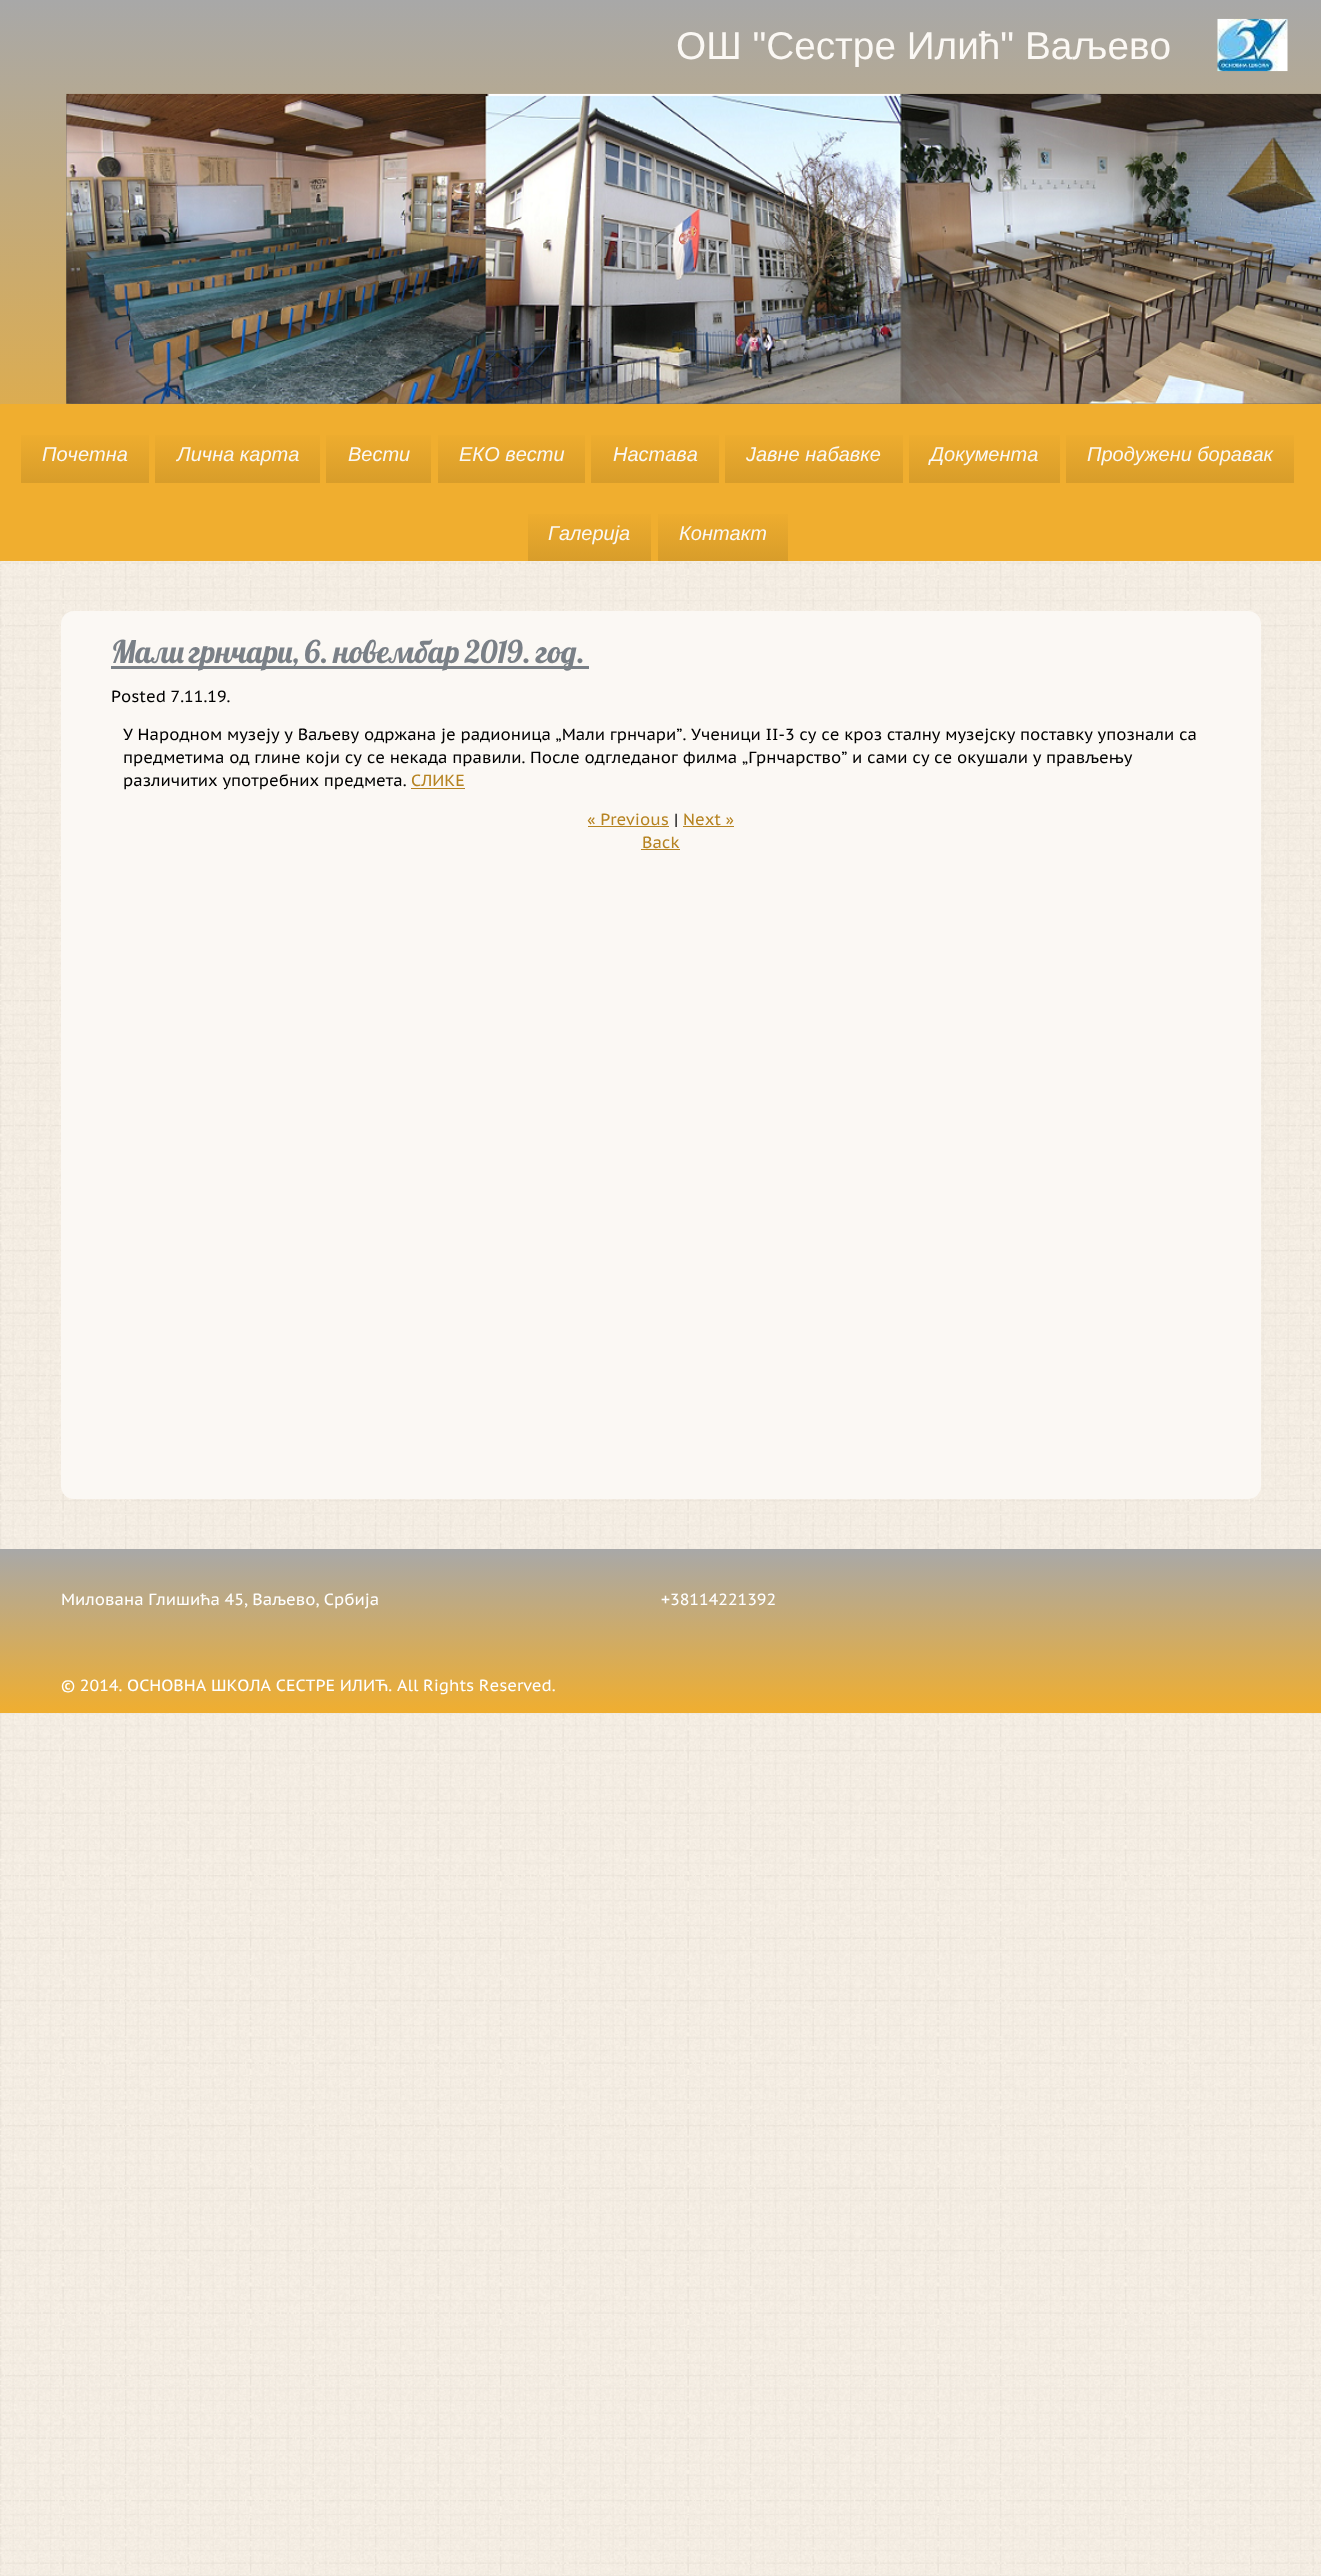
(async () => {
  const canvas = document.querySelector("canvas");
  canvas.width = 1321;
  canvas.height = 2576;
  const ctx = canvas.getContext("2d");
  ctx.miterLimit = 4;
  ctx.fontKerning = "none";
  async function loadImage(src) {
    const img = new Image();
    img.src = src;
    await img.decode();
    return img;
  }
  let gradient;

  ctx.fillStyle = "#f9f2e7";
  ctx.fillRect(0, 0, 1321, 2576);
  ctx.drawImage(await loadImage("img/1.png"), 0, 561, 1321, 2015);
  gradient = ctx.createLinearGradient(661, 0, 661, 561);
  gradient.addColorStop(0, "#a8a8a8");
  gradient.addColorStop(1, "#f0ae2f");
  ctx.fillStyle = gradient;
  ctx.fillRect(0, 0, 1321, 561);
  ctx.drawImage(await loadImage("img/2.png"), 1217, 18, 71, 54);
  ctx.fillStyle = "#f0ae2f";
  ctx.beginPath();
  ctx.roundRect(0, 404, 1321, 157, 1);
  ctx.fill();
  ctx.save();
  ctx.beginPath();
  ctx.rect(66, 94, 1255, 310);
  ctx.clip();
  ctx.fillStyle = "#4a4a4a";
  ctx.filter = "blur(3px)";
  ctx.beginPath();
  ctx.rect(66, 95, 1255, 310);
  ctx.fill();
  ctx.filter = "none";
  ctx.restore();
  ctx.drawImage(await loadImage("img/3.png"), 66, 93, 1255, 311);
  gradient = ctx.createLinearGradient(85, 483, 85, 429);
  gradient.addColorStop(0, "#d89d2a");
  gradient.addColorStop(1, "#f0ae2f");
  ctx.fillStyle = gradient;
  ctx.fillRect(21, 435, 128, 48);
  gradient = ctx.createLinearGradient(238, 483, 238, 429);
  gradient.addColorStop(0, "#d89d2a");
  gradient.addColorStop(1, "#f0ae2f");
  ctx.fillStyle = gradient;
  ctx.fillRect(155, 435, 165, 48);
  gradient = ctx.createLinearGradient(379, 483, 379, 429);
  gradient.addColorStop(0, "#d89d2a");
  gradient.addColorStop(1, "#f0ae2f");
  ctx.fillStyle = gradient;
  ctx.fillRect(326, 435, 105, 48);
  gradient = ctx.createLinearGradient(511, 483, 511, 429);
  gradient.addColorStop(0, "#d89d2a");
  gradient.addColorStop(1, "#f0ae2f");
  ctx.fillStyle = gradient;
  ctx.fillRect(438, 435, 147, 48);
  gradient = ctx.createLinearGradient(655, 483, 655, 429);
  gradient.addColorStop(0, "#d89d2a");
  gradient.addColorStop(1, "#f0ae2f");
  ctx.fillStyle = gradient;
  ctx.fillRect(591, 435, 128, 48);
  gradient = ctx.createLinearGradient(814, 483, 814, 429);
  gradient.addColorStop(0, "#d89d2a");
  gradient.addColorStop(1, "#f0ae2f");
  ctx.fillStyle = gradient;
  ctx.fillRect(725, 435, 178, 48);
  gradient = ctx.createLinearGradient(984, 483, 984, 429);
  gradient.addColorStop(0, "#d89d2a");
  gradient.addColorStop(1, "#f0ae2f");
  ctx.fillStyle = gradient;
  ctx.fillRect(909, 435, 151, 48);
  gradient = ctx.createLinearGradient(1180, 483, 1180, 429);
  gradient.addColorStop(0, "#d89d2a");
  gradient.addColorStop(1, "#f0ae2f");
  ctx.fillStyle = gradient;
  ctx.fillRect(1066, 435, 228, 48);
  gradient = ctx.createLinearGradient(589, 561, 589, 508);
  gradient.addColorStop(0, "#d89d2a");
  gradient.addColorStop(1, "#f0ae2f");
  ctx.fillStyle = gradient;
  ctx.fillRect(528, 514, 123, 47);
  gradient = ctx.createLinearGradient(723, 561, 723, 508);
  gradient.addColorStop(0, "#d89d2a");
  gradient.addColorStop(1, "#f0ae2f");
  ctx.fillStyle = gradient;
  ctx.fillRect(658, 514, 130, 47);
  ctx.fillStyle = "#fbf8f4";
  ctx.beginPath();
  ctx.roundRect(61, 611, 1200, 888, 13);
  ctx.fill();
  for (const [x, y, w, h, color] of [
    [111, 666, 478, 3, "#7a8087"],
    [411, 788, 54, 1, "#b68321"],
    [588, 826, 81, 1, "#b68321"],
    [683, 826, 51, 1, "#b68321"],
    [641, 849, 39, 1, "#b68321"],
  ]) {
    ctx.fillStyle = color;
    ctx.fillRect(x, y, w, h);
  }
  gradient = ctx.createLinearGradient(661, 1549, 661, 1713);
  gradient.addColorStop(0, "#a8a8a8");
  gradient.addColorStop(1, "#f0ae2f");
  ctx.fillStyle = gradient;
  ctx.fillRect(0, 1549, 1321, 164);
  ctx.font = "38.75px Liberation Sans";
  ctx.fillStyle = "#fbf8f4";
  ctx.fillText("ОШ \"Сестре Илић\" Ваљево", 676, 59);
  ctx.font = "italic 20px Liberation Sans";
  for (const [text, x, y] of [
    ["Почетна", 42, 461],
    ["Лична карта", 177, 461],
    ["Вести", 348, 461],
    ["ЕКО вести", 459, 461],
    ["Настава", 613, 461],
    ["Јавне набавке", 746, 461],
    ["Документа", 930, 461],
    ["Продужени боравак", 1087, 461],
    ["Галерија", 548, 540],
    ["Контакт", 679, 540],
  ]) {
    ctx.fillText(text, x, y);
  }
  ctx.wordSpacing = "-1.5px";
  ctx.font = "31.25px Lobster";
  ctx.fillStyle = "#7a8087";
  ctx.fillText("Мали грнчари, 6. новембар 2019. год.", 111, 663);
  ctx.wordSpacing = "0px";
  ctx.font = "16.25px PT Sans Caption";
  ctx.fillStyle = "#000000";
  for (const [text, x, y] of [
    ["Posted 7.11.19.", 111, 702],
    ["У Народном музеју у Ваљеву одржана је радионица „Мали грнчари”.", 123, 740],
    ["Ученици II-3 су се кроз сталну музејску поставку упознали са", 691, 740],
    ["предметима од глине који су се некада правили. После одгледаног филма", 123, 763],
    ["„Грнчарство” и сами су", 742, 763],
    ["се окушали у прављењу", 934, 763],
    ["различитих употребних предмета.", 123, 786],
  ]) {
    ctx.fillText(text, x, y);
  }
  ctx.fillStyle = "#b68321";
  ctx.fillText("СЛИКЕ", 411, 786);
  ctx.fillText("« Previous", 587, 825);
  ctx.fillStyle = "#000000";
  ctx.fillText("|", 674, 825);
  ctx.fillStyle = "#b68321";
  ctx.fillText("Next »", 683, 825);
  ctx.fillText("Back", 642, 848);
  ctx.fillStyle = "#ffffff";
  for (const [text, x, y] of [
    ["Милована Глишића 45, Ваљево, Србија", 61, 1605],
    ["+38114221392", 661, 1605],
    ["© 2014. ОСНОВНА ШКОЛА СЕСТРЕ ИЛИЋ. All Rights Reserved.", 61, 1691],
  ]) {
    ctx.fillText(text, x, y);
  }
})();
